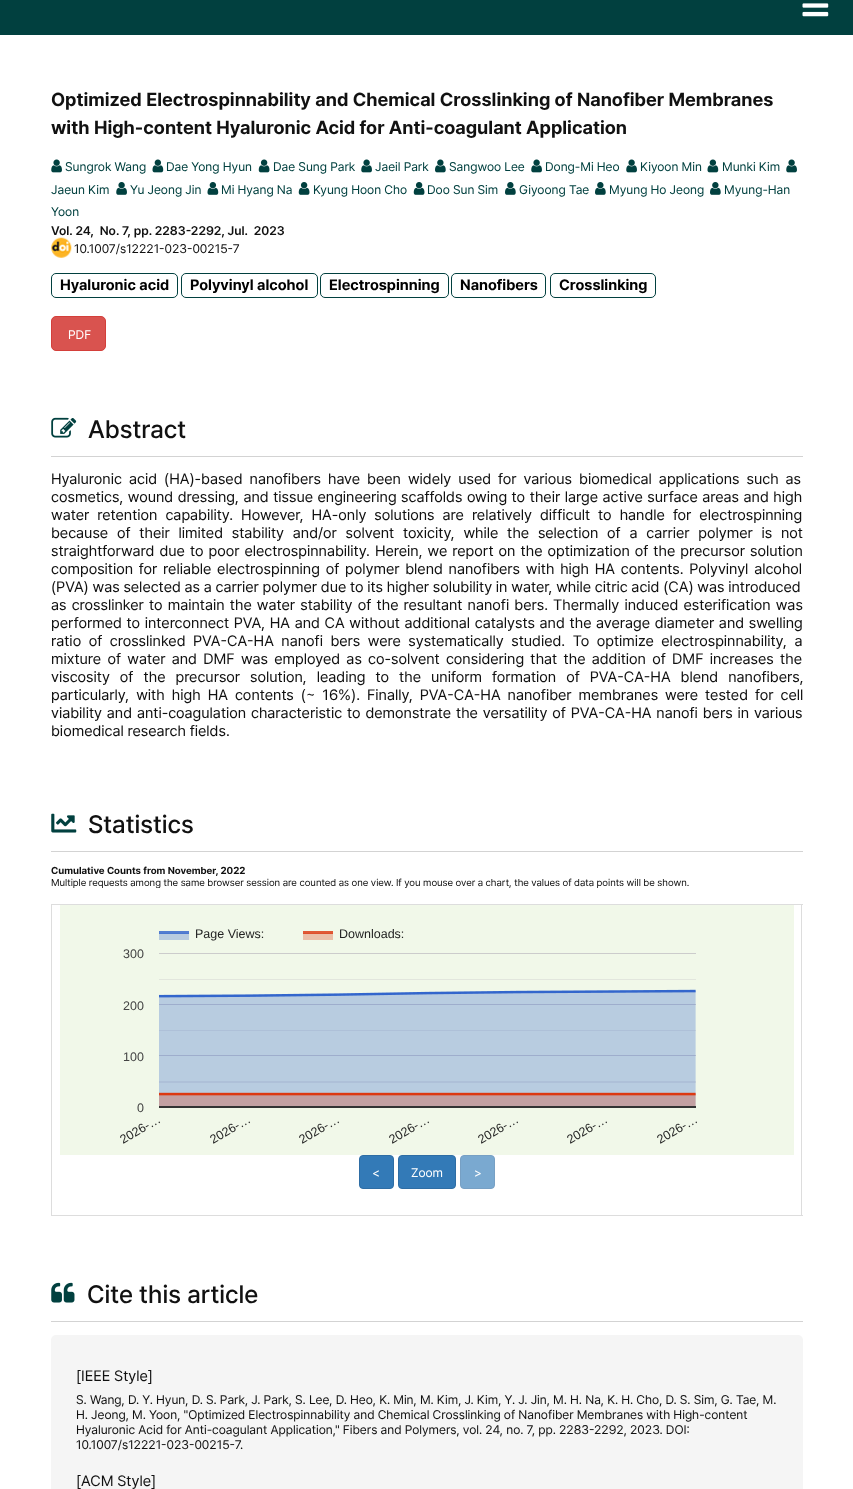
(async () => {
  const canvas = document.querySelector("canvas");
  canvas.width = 853;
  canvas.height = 1489;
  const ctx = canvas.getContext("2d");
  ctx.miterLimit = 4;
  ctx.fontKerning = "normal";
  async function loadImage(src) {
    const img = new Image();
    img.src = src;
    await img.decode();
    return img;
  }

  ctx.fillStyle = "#ffffff";
  ctx.fillRect(0, 0, 853, 1489);
  ctx.fillStyle = "#01403f";
  ctx.fillRect(0, 0, 853, 35);
  ctx.drawImage(await loadImage("img/1.png"), 802, 3, 27, 14);
  ctx.drawImage(await loadImage("img/2.png"), 51, 159, 11, 14);
  ctx.drawImage(await loadImage("img/3.png"), 152, 159, 12, 14);
  ctx.drawImage(await loadImage("img/4.png"), 258, 159, 12, 14);
  ctx.drawImage(await loadImage("img/2.png"), 361, 159, 11, 14);
  ctx.drawImage(await loadImage("img/5.png"), 435, 159, 11, 14);
  ctx.drawImage(await loadImage("img/2.png"), 531, 159, 11, 14);
  ctx.drawImage(await loadImage("img/2.png"), 626, 159, 11, 14);
  ctx.drawImage(await loadImage("img/3.png"), 707, 159, 12, 14);
  ctx.drawImage(await loadImage("img/2.png"), 786, 159, 11, 14);
  ctx.drawImage(await loadImage("img/6.png"), 116, 182, 11, 13);
  ctx.drawImage(await loadImage("img/7.png"), 207, 182, 12, 13);
  ctx.drawImage(await loadImage("img/8.png"), 413, 182, 12, 13);
  ctx.drawImage(await loadImage("img/9.png"), 505, 182, 11, 13);
  ctx.drawImage(await loadImage("img/9.png"), 710, 182, 11, 13);
  ctx.drawImage(await loadImage("img/8.png"), 298, 182, 12, 13);
  ctx.drawImage(await loadImage("img/9.png"), 595, 182, 11, 13);
  ctx.beginPath();
  ctx.roundRect(51.5, 273.5, 126, 24, 4.5);
  ctx.strokeStyle = "#01403f";
  ctx.stroke();
  ctx.beginPath();
  ctx.roundRect(181.5, 273.5, 136, 24, 4.5);
  ctx.stroke();
  ctx.beginPath();
  ctx.roundRect(320.5, 273.5, 128, 24, 4.5);
  ctx.stroke();
  ctx.beginPath();
  ctx.roundRect(451.5, 273.5, 94, 24, 4.5);
  ctx.stroke();
  ctx.beginPath();
  ctx.roundRect(550.5, 273.5, 105, 24, 4.5);
  ctx.stroke();
  ctx.fillStyle = "#d9534f";
  ctx.beginPath();
  ctx.roundRect(51.5, 316.5, 54, 34, 4.5);
  ctx.fill();
  ctx.strokeStyle = "#d43f3a";
  ctx.stroke();
  ctx.fillStyle = "#d3d3d3";
  ctx.fillRect(51, 456, 752, 1);
  ctx.drawImage(await loadImage("img/11.png"), 51, 417, 26, 21);
  ctx.fillRect(51, 851, 752, 1);
  ctx.drawImage(await loadImage("img/12.png"), 51, 813, 26, 20);
  for (const [x, y, w, h, color] of [
    [51, 904, 752, 1, "#dddddd"],
    [801, 904, 1, 312, "#dddddd"],
    [51, 1215, 752, 1, "#dddddd"],
    [51, 904, 1, 312, "#dddddd"],
  ]) {
    ctx.fillStyle = color;
    ctx.fillRect(x, y, w, h);
  }
  ctx.drawImage(await loadImage("img/13.png"), 60, 905, 734, 250);
  ctx.fillStyle = "#337ab7";
  ctx.beginPath();
  ctx.roundRect(359.5, 1155.5, 34, 33, 3.5);
  ctx.fill();
  ctx.strokeStyle = "#2e6da4";
  ctx.stroke();
  ctx.beginPath();
  ctx.roundRect(398.5, 1155.5, 57, 33, 3.5);
  ctx.fill();
  ctx.stroke();
  ctx.fillStyle = "#7aa9d0";
  ctx.beginPath();
  ctx.roundRect(460.5, 1155.5, 34, 33, 3.5);
  ctx.fill();
  ctx.strokeStyle = "#77a0c4";
  ctx.stroke();
  ctx.fillStyle = "#d3d3d3";
  ctx.fillRect(51, 1321, 752, 1);
  ctx.drawImage(await loadImage("img/14.png"), 51, 1282, 24, 21);
  ctx.fillStyle = "#f5f5f5";
  ctx.beginPath();
  ctx.roundRect(51, 1335, 752, 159, 5);
  ctx.fill();
  ctx.font = "bold 18.75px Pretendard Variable";
  ctx.fillStyle = "#111111";
  ctx.fillText("Optimized Electrospinnability and Chemical Crosslinking of Nanofiber Membranes", 51, 106);
  ctx.fillText("with High-content Hyaluronic Acid for Anti-coagulant Application", 51, 134);
  ctx.font = "12.5px Pretendard Variable";
  ctx.fillStyle = "#01403f";
  for (const [text, x, y] of [
    ["Sungrok Wang", 65, 171],
    ["Dae Yong Hyun", 166, 171],
    ["Dae Sung Park", 273, 171],
    ["Jaeil Park", 375, 171],
    ["Sangwoo Lee", 449, 171],
    ["Dong-Mi Heo", 545, 171],
    ["Kiyoon Min", 640, 171],
    ["Munki Kim", 722, 171],
    ["Jaeun Kim", 51, 194],
    ["Yu Jeong Jin", 130, 194],
    ["Mi Hyang Na", 221, 194],
    ["Doo Sun Sim", 427, 194],
    ["Giyoong Tae", 519, 194],
    ["Myung-Han", 724, 194],
    ["Yoon", 51, 216],
    ["Kyung Hoon Cho", 313, 194],
    ["Myung Ho Jeong", 609, 194],
  ]) {
    ctx.fillText(text, x, y);
  }
  ctx.font = "600 12.5px Pretendard Variable";
  ctx.fillStyle = "#111111";
  ctx.fillText("Vol. 24,  No. 7, pp. 2283-2292, Jul.  2023", 51, 235);
  ctx.drawImage(await loadImage("img/10.png"), 51, 237, 21, 21);
  ctx.font = "12.5px Pretendard Variable";
  ctx.fillText("10.1007/s12221-023-00215-7", 74, 253);
  ctx.font = "bold 15px Pretendard Variable";
  ctx.fillStyle = "#000000";
  for (const [text, x, y] of [
    ["Hyaluronic acid", 60, 290],
    ["Polyvinyl alcohol", 190, 290],
    ["Electrospinning", 329, 290],
    ["Nanofibers", 460, 290],
    ["Crosslinking", 559, 290],
  ]) {
    ctx.fillText(text, x, y);
  }
  ctx.font = "12.5px Pretendard Variable";
  ctx.fillStyle = "#ffffff";
  ctx.fillText("PDF", 68, 339);
  ctx.font = "500 25px Pretendard Variable";
  ctx.fillStyle = "#111111";
  ctx.fillText("Abstract", 88, 438);
  ctx.wordSpacing = "3.25px";
  ctx.font = "15px Pretendard Variable";
  ctx.fillText("Hyaluronic acid (HA)-based nanofibers have been widely used for various biomedical applications such as", 51, 484);
  ctx.wordSpacing = "0.75px";
  ctx.fillText("cosmetics, wound dressing, and tissue engineering scaffolds owing to their large active surface areas and high", 51, 502);
  ctx.wordSpacing = "4.25px";
  ctx.fillText("water retention capability. However, HA-only solutions are relatively difficult to handle for electrospinning", 51, 520);
  ctx.wordSpacing = "5px";
  ctx.fillText("because of their limited stability and/or solvent toxicity, while the selection of a carrier polymer is not", 51, 538);
  ctx.wordSpacing = "1.25px";
  ctx.fillText("straightforward due to poor electrospinnability. Herein, we report on the optimization of the precursor solution", 51, 556);
  ctx.wordSpacing = "2px";
  ctx.fillText("composition for reliable electrospinning of polymer blend nanofibers with high HA contents. Polyvinyl alcohol", 51, 574);
  ctx.wordSpacing = "0px";
  ctx.fillText("(PVA) was selected as a carrier polymer due to its higher solubility in water, while citric acid (CA) was introduced", 51, 592);
  ctx.wordSpacing = "1.4px";
  ctx.fillText("as crosslinker to maintain the water stability of the resultant nanofi bers. Thermally induced esterification was", 51, 610);
  ctx.wordSpacing = "0.9px";
  ctx.fillText("performed to interconnect PVA, HA and CA without additional catalysts and the average diameter and swelling", 51, 628);
  ctx.wordSpacing = "3.75px";
  ctx.fillText("ratio of crosslinked PVA-CA-HA nanofi bers were systematically studied. To optimize electrospinnability, a", 51, 646);
  ctx.wordSpacing = "2.5px";
  ctx.fillText("mixture of water and DMF was employed as co-solvent considering that the addition of DMF increases the", 51, 664);
  ctx.wordSpacing = "6.25px";
  ctx.fillText("viscosity of the precursor solution, leading to the uniform formation of PVA-CA-HA blend nanofibers,", 51, 682);
  ctx.wordSpacing = "3.25px";
  ctx.fillText("particularly, with high HA contents (~ 16%). Finally, PVA-CA-HA nanofiber membranes were tested for cell", 51, 700);
  ctx.wordSpacing = "1.1px";
  ctx.fillText("viability and anti-coagulation characteristic to demonstrate the versatility of PVA-CA-HA nanofi bers in various", 51, 718);
  ctx.wordSpacing = "0px";
  ctx.fillText("biomedical research fields.", 51, 736);
  ctx.font = "500 25px Pretendard Variable";
  ctx.fillText("Statistics", 88, 833);
  ctx.font = "bold 10px Pretendard Variable";
  ctx.fillText("Cumulative Counts from November, 2022", 51, 874);
  ctx.font = "10px Pretendard Variable";
  ctx.fillText("Multiple requests among the same browser session are counted as one view. If you mouse over a chart, the values of data points will be shown.", 51, 886);
  ctx.font = "12.5px Liberation Sans";
  ctx.fillStyle = "#222222";
  ctx.fillText("Page Views:", 195, 938);
  ctx.fillText("Downloads:", 339, 938);
  ctx.fillStyle = "#444444";
  for (const [text, x, y] of [
    ["300", 123, 958],
    ["200", 123, 1010],
    ["100", 123, 1061],
    ["0", 137, 1112],
  ]) {
    ctx.fillText(text, x, y);
  }
  ctx.fillStyle = "#222222";
  ctx.save();
  ctx.translate(123, 1144);
  ctx.rotate(-30 * Math.PI / 180);
  ctx.fillText("2026-…", 0, 0);
  ctx.restore();
  ctx.save();
  ctx.translate(213, 1144);
  ctx.rotate(-30 * Math.PI / 180);
  ctx.fillText("2026-…", 0, 0);
  ctx.restore();
  ctx.save();
  ctx.translate(302, 1144);
  ctx.rotate(-30 * Math.PI / 180);
  ctx.fillText("2026-…", 0, 0);
  ctx.restore();
  ctx.save();
  ctx.translate(392, 1144);
  ctx.rotate(-30 * Math.PI / 180);
  ctx.fillText("2026-…", 0, 0);
  ctx.restore();
  ctx.save();
  ctx.translate(481, 1144);
  ctx.rotate(-30 * Math.PI / 180);
  ctx.fillText("2026-…", 0, 0);
  ctx.restore();
  ctx.save();
  ctx.translate(570, 1144);
  ctx.rotate(-30 * Math.PI / 180);
  ctx.fillText("2026-…", 0, 0);
  ctx.restore();
  ctx.save();
  ctx.translate(660, 1144);
  ctx.rotate(-30 * Math.PI / 180);
  ctx.fillText("2026-…", 0, 0);
  ctx.restore();
  ctx.font = "12.5px Pretendard Variable";
  ctx.fillStyle = "#ffffff";
  for (const [text, x, y] of [
    ["<", 372, 1177],
    ["Zoom", 411, 1177],
    [">", 474, 1177],
  ]) {
    ctx.fillText(text, x, y);
  }
  ctx.font = "500 25px Pretendard Variable";
  ctx.fillStyle = "#111111";
  ctx.fillText("Cite this article", 87, 1303);
  ctx.font = "15px Pretendard Variable";
  ctx.fillText("[IEEE Style]", 76, 1381);
  ctx.font = "12.5px Pretendard Variable";
  for (const [text, x, y] of [
    ["S. Wang, D. Y. Hyun, D. S. Park, J. Park, S. Lee, D. Heo, K. Min, M. Kim, J. Kim, Y. J. Jin, M. H. Na, K. H. Cho, D. S. Sim, G. Tae, M.", 76, 1404],
    ["H. Jeong, M. Yoon, \"Optimized Electrospinnability and Chemical Crosslinking of Nanofiber Membranes with High-content", 76, 1419],
    ["Hyaluronic Acid for Anti-coagulant Application,\" Fibers and Polymers, vol. 24, no. 7, pp. 2283-2292, 2023. DOI:", 76, 1434],
    ["10.1007/s12221-023-00215-7.", 76, 1449],
  ]) {
    ctx.fillText(text, x, y);
  }
  ctx.font = "15px Pretendard Variable";
  ctx.fillText("[ACM Style]", 76, 1486);
})();
